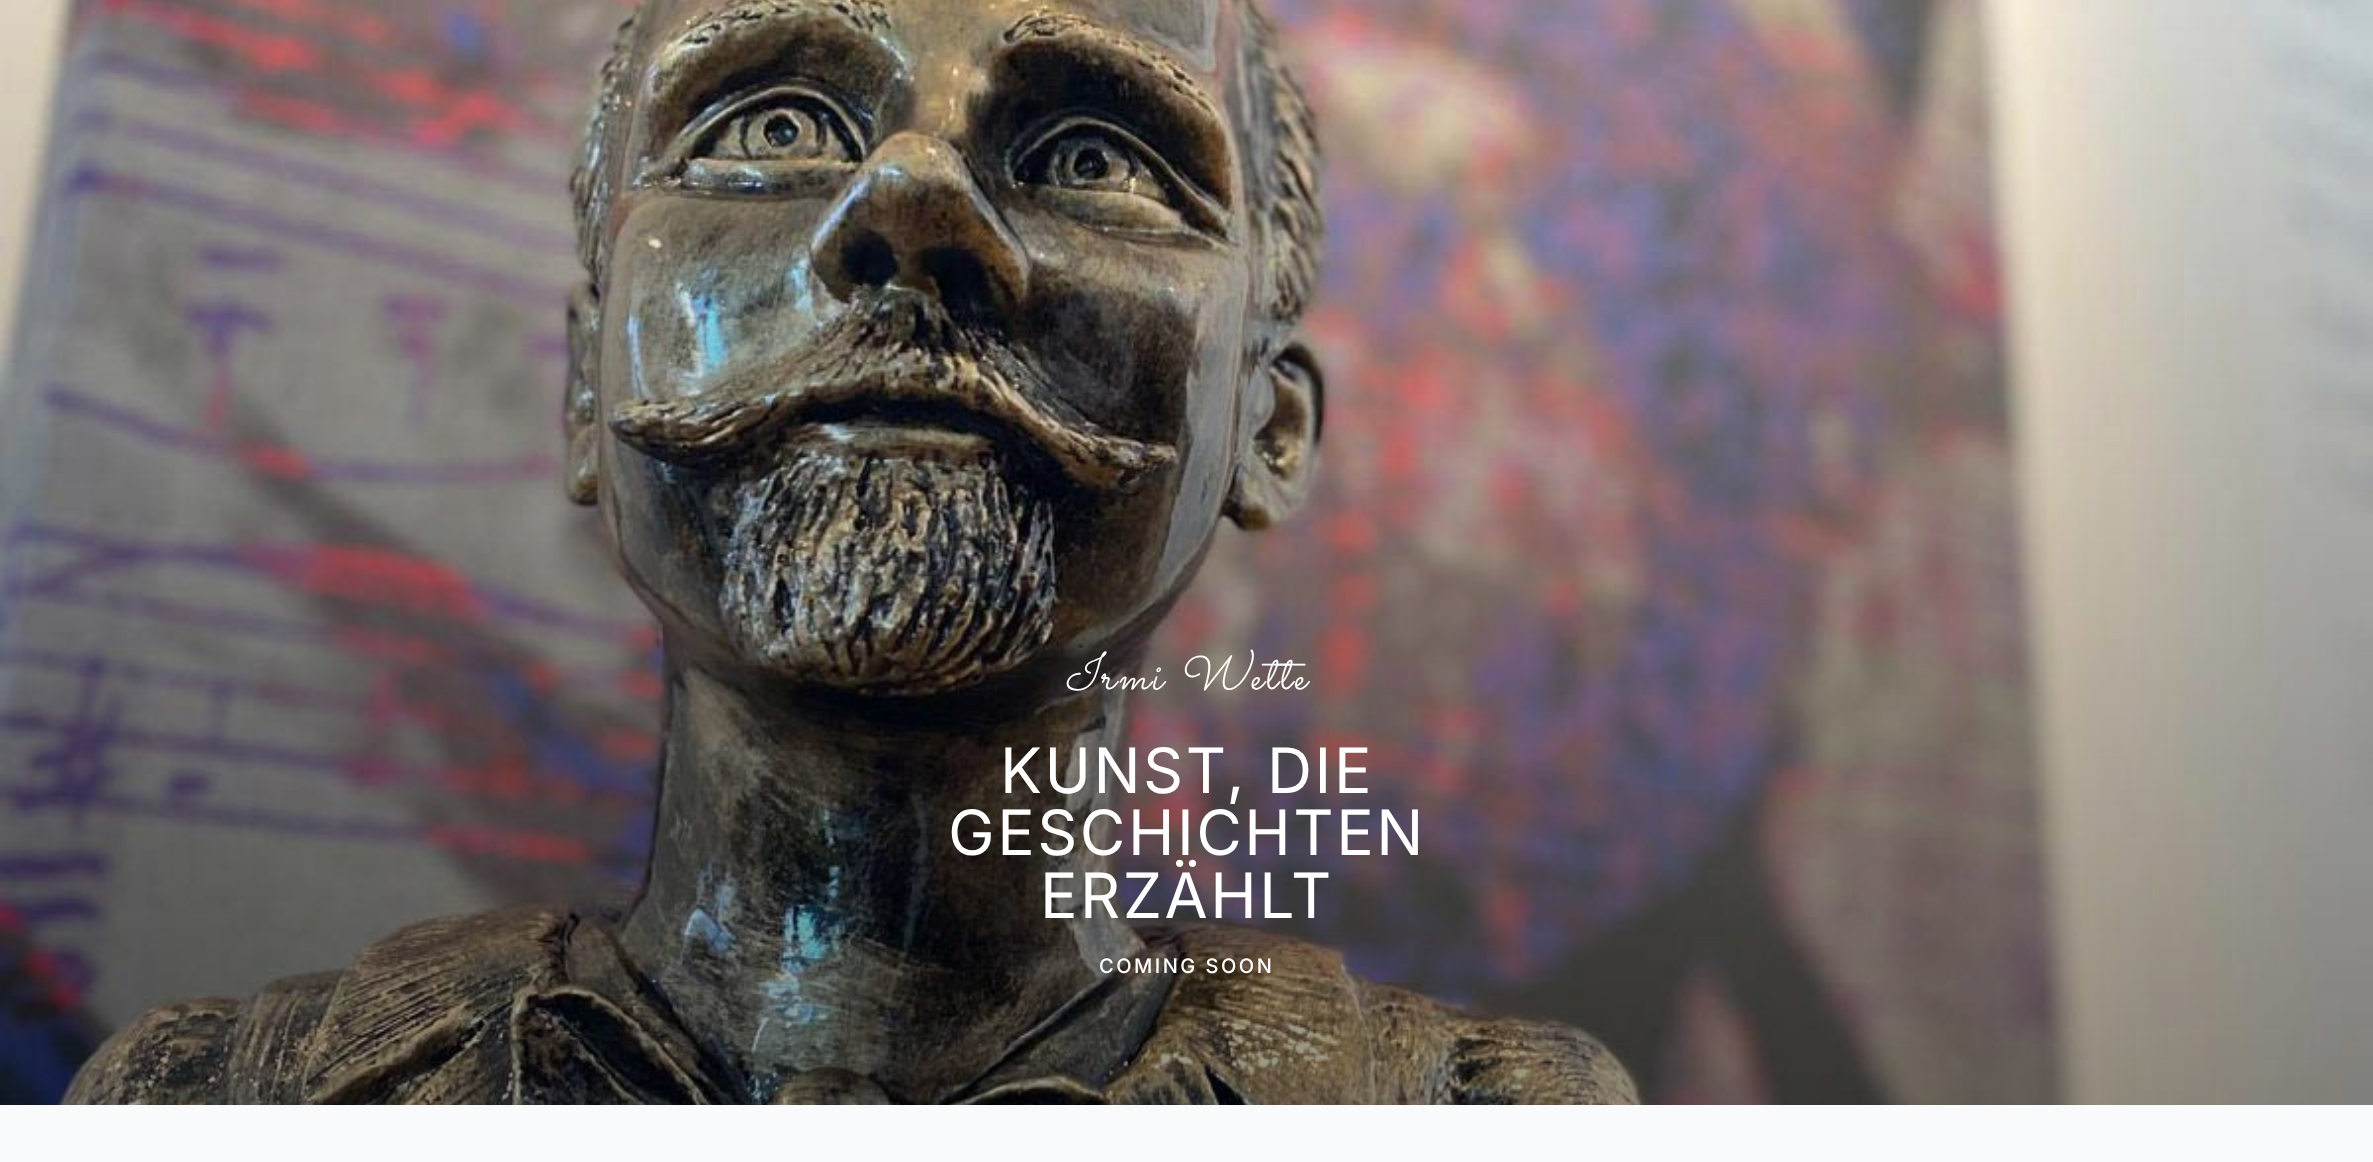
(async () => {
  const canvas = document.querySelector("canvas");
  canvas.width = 2373;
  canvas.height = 1162;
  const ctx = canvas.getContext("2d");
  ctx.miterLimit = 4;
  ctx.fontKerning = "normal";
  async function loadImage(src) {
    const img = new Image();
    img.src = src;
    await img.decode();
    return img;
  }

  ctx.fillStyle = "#f9fafb";
  ctx.fillRect(0, 0, 2373, 1162);
  ctx.drawImage(await loadImage("img/1.png"), 0, 0, 2373, 1105);
  ctx.letterSpacing = "2.5px";
  ctx.font = "italic 50px Sacramento";
  ctx.fillStyle = "#ffffff";
  ctx.fillText("Irmi Wette", 1065, 689);
  ctx.font = "62.5px Inter";
  for (const [text, x, y] of [
    ["KUNST, DIE", 1000, 793],
    ["GESCHICHTEN", 948, 855],
    ["ERZÄHLT", 1040, 918],
  ]) {
    ctx.fillText(text, x, y);
  }
  ctx.font = "500 20px Inter";
  ctx.fillText("COMING SOON", 1099, 973);
})();
